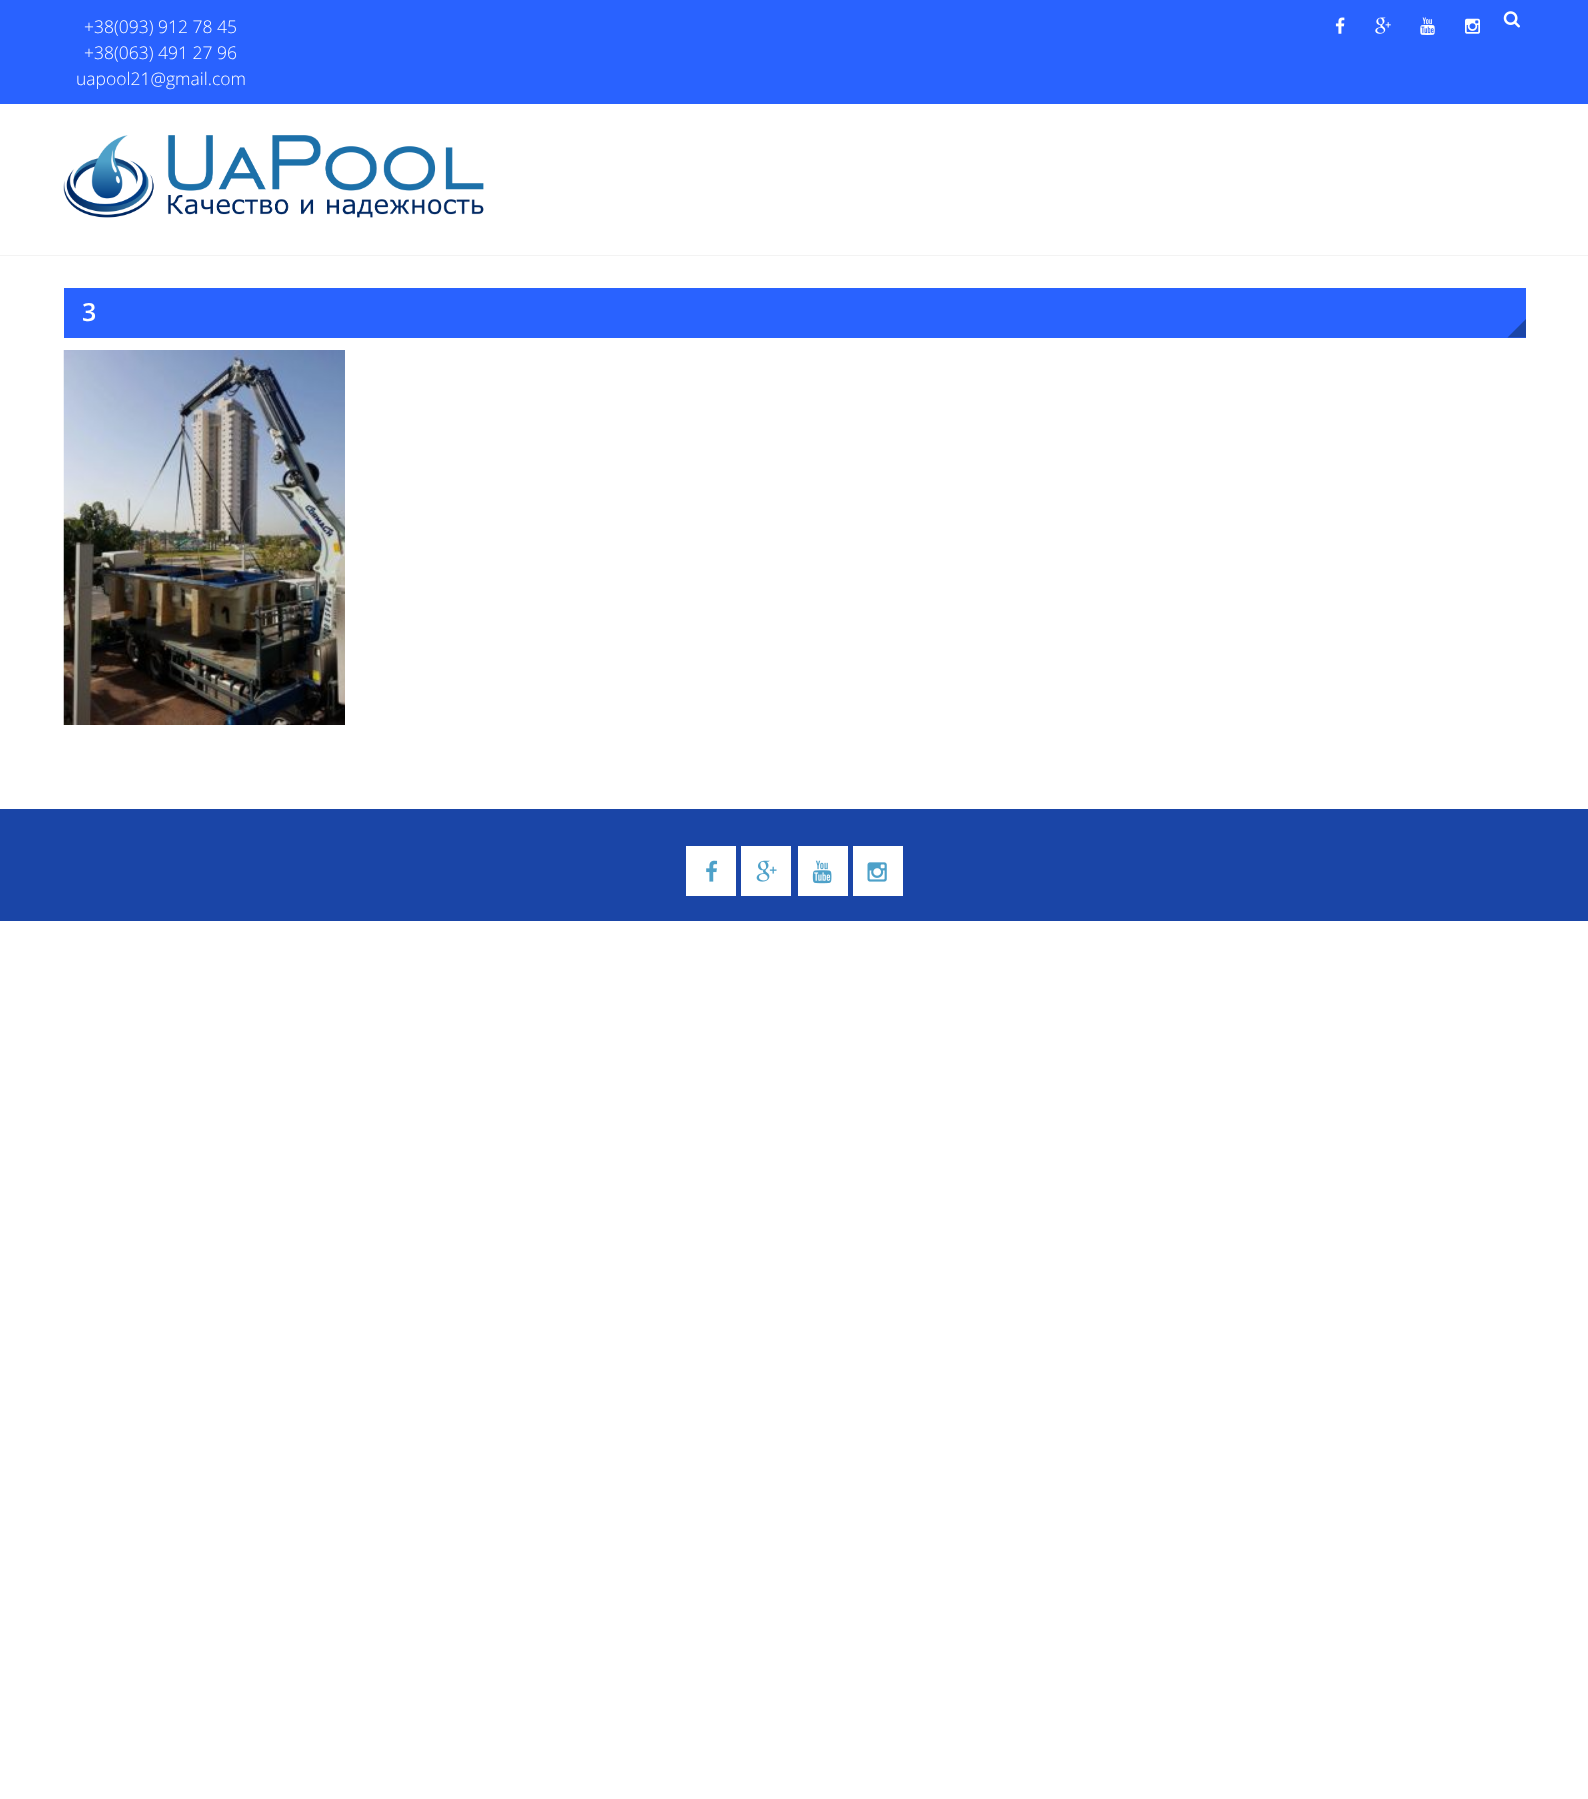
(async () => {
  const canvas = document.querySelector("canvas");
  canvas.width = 1588;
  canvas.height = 1799;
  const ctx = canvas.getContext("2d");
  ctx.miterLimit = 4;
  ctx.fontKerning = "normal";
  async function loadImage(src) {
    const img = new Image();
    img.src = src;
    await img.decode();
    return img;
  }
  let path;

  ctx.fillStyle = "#ffffff";
  ctx.fillRect(0, 0, 1588, 1799);
  ctx.fillStyle = "#2962ff";
  ctx.fillRect(0, 0, 1588, 104);
  ctx.drawImage(await loadImage("img/1.png"), 1335, 17, 10, 17);
  ctx.drawImage(await loadImage("img/2.png"), 1375, 17, 16, 17);
  ctx.drawImage(await loadImage("img/3.png"), 1420, 17, 15, 18);
  ctx.drawImage(await loadImage("img/4.png"), 1465, 18, 15, 16);
  ctx.drawImage(await loadImage("img/5.png"), 1503, 11, 17, 17);
  ctx.fillStyle = "#f3f3f3";
  ctx.fillRect(0, 255, 1588, 1);
  ctx.drawImage(await loadImage("img/6.png"), 63, 135, 421, 83);
  ctx.fillStyle = "#2962ff";
  ctx.fillRect(64, 288, 1462, 50);
  ctx.fillStyle = "#1a45a7";
  path = new Path2D("M1526 337.5H1507.5L1526 319Z");
  ctx.fill(path);
  ctx.drawImage(await loadImage("img/7.png"), 63, 350, 282, 375);
  ctx.fillRect(0, 809, 1588, 112);
  ctx.fillStyle = "#ffffff";
  ctx.fillRect(686, 846, 50, 50);
  ctx.drawImage(await loadImage("img/8.png"), 706, 860, 12, 22);
  ctx.fillRect(741, 846, 50, 50);
  ctx.drawImage(await loadImage("img/9.png"), 756, 860, 21, 22);
  ctx.fillRect(798, 846, 50, 50);
  ctx.drawImage(await loadImage("img/10.png"), 812, 860, 20, 24);
  ctx.fillRect(853, 846, 50, 50);
  ctx.drawImage(await loadImage("img/11.png"), 867, 862, 20, 20);
  ctx.font = "300 17.5px Open Sans";
  for (const [text, x, y] of [
    ["+38(093) 912 78 45", 84, 33],
    ["+38(063) 491 27 96", 84, 59],
    ["uapool21@gmail.com", 76, 85],
  ]) {
    ctx.fillText(text, x, y);
  }
  ctx.font = "600 25px Open Sans";
  ctx.fillText("3", 82, 321);
})();
